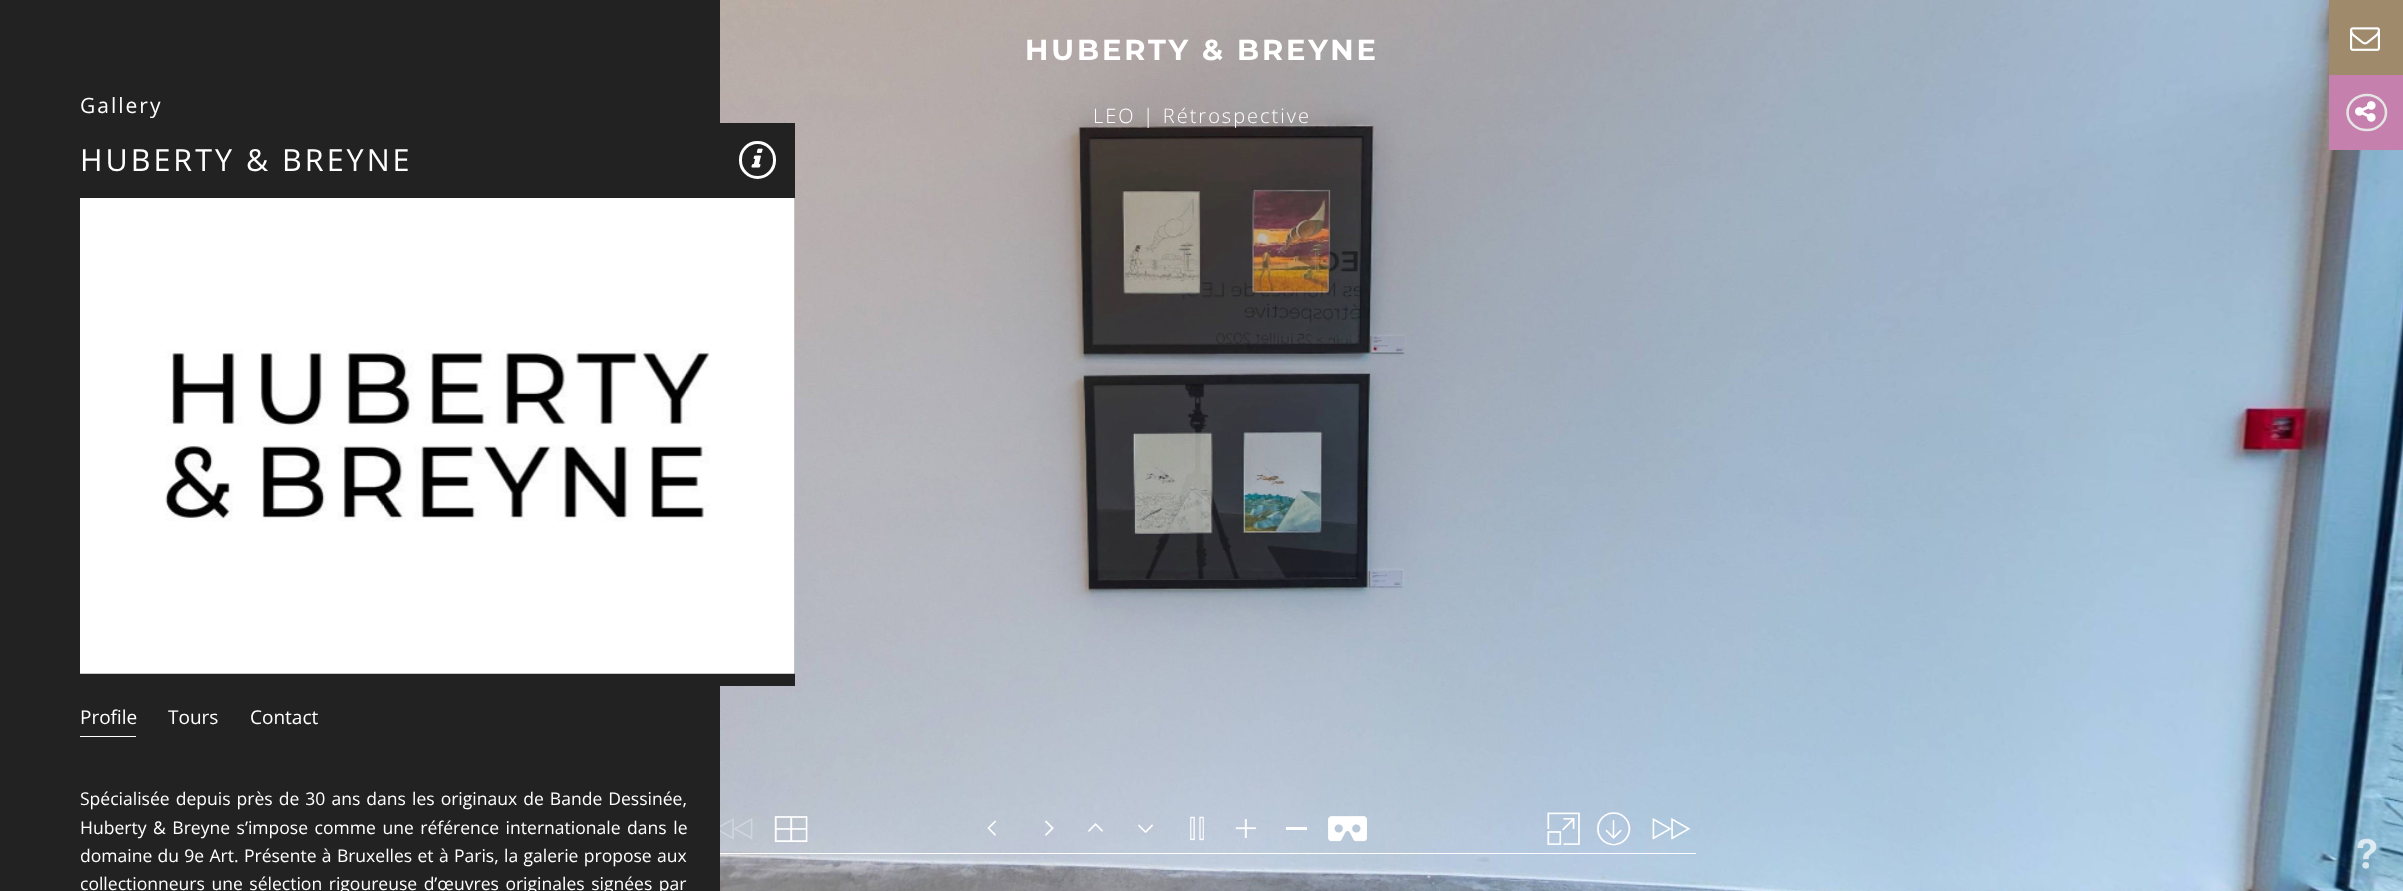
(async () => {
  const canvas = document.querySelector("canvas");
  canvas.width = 2403;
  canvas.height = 891;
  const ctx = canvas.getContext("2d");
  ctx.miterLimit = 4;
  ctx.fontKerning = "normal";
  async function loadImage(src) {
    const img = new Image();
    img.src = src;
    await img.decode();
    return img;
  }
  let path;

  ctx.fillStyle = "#ffffff";
  ctx.fillRect(0, 0, 2403, 891);
  ctx.drawImage(await loadImage("img/1.png"), 720, 0, 1683, 891);
  ctx.drawImage(await loadImage("img/2.png"), 720, 818, 33, 22);
  ctx.drawImage(await loadImage("img/3.png"), 774, 816, 34, 26);
  ctx.drawImage(await loadImage("img/4.png"), 987, 820, 10, 16);
  ctx.drawImage(await loadImage("img/5.png"), 1045, 820, 9, 16);
  ctx.drawImage(await loadImage("img/6.png"), 1087, 823, 16, 9);
  ctx.drawImage(await loadImage("img/7.png"), 1137, 824, 17, 9);
  ctx.drawImage(await loadImage("img/8.png"), 1190, 816, 14, 25);
  ctx.drawImage(await loadImage("img/9.png"), 1235, 819, 22, 19);
  ctx.fillStyle = "rgba(255, 255, 255, 0.96)";
  ctx.fillRect(1286, 827, 21, 3);
  ctx.drawImage(await loadImage("img/10.png"), 1328, 816, 39, 26);
  ctx.drawImage(await loadImage("img/11.png"), 1547, 812, 33, 33);
  ctx.drawImage(await loadImage("img/12.png"), 1597, 812, 34, 34);
  ctx.drawImage(await loadImage("img/13.png"), 1652, 818, 38, 22);
  ctx.fillStyle = "#ffffff";
  ctx.fillRect(720, 853, 976, 1);
  ctx.fillStyle = "#9f8b6c";
  ctx.fillRect(2329, 0, 74, 75);
  ctx.drawImage(await loadImage("img/14.png"), 2350, 27, 30, 24);
  ctx.fillStyle = "#dc8fc1";
  ctx.fillRect(2329, 75, 74, 75);
  path = new Path2D("M2367 95C2377.5 95 2386 103 2386 112.5C2386 122 2377.5 130 2367 130C2356 130 2347.5 122 2347.5 112.5C2347.5 103 2356 95 2367 95Z");
  ctx.strokeStyle = "#ffffff";
  ctx.lineWidth = 2.5;
  ctx.stroke(path);
  ctx.fillStyle = "rgba(0, 0, 0, 0.1)";
  ctx.fillRect(2329, 75, 74, 75);
  ctx.drawImage(await loadImage("img/15.png"), 2355, 101, 21, 21);
  ctx.fillStyle = "#222222";
  ctx.fillRect(0, 0, 720, 891);
  ctx.fillRect(720, 123, 75, 563);
  ctx.beginPath();
  ctx.roundRect(740.5, 142.5, 34, 35, 17);
  ctx.lineWidth = 3;
  ctx.stroke();
  ctx.drawImage(await loadImage("img/16.png"), 751, 148, 12, 20);
  ctx.drawImage(await loadImage("img/17.png"), 80, 198, 715, 476);
  ctx.fillStyle = "#ffffff";
  ctx.fillRect(80, 736, 56, 1);
  ctx.drawImage(await loadImage("img/18.png"), 2357, 838, 20, 31);
  ctx.letterSpacing = "2.9px";
  ctx.font = "bold 28.9px Montserrat";
  ctx.fillText("HUBERTY & BREYNE", 1025, 60);
  ctx.letterSpacing = "2px";
  ctx.font = "300 20px Open Sans";
  ctx.fillText("LEO | Rétrospective", 1093, 123);
  ctx.font = "21px Open Sans";
  ctx.fillText("Gallery", 80, 113);
  ctx.letterSpacing = "3px";
  ctx.font = "30.5px Open Sans";
  ctx.fillText("HUBERTY & BREYNE", 80, 171);
  ctx.letterSpacing = "0px";
  ctx.font = "19px Open Sans";
  for (const [text, x, y] of [
    ["Profile", 80, 724],
    ["Tours", 168, 724],
    ["Contact", 250, 724],
  ]) {
    ctx.fillText(text, x, y);
  }
  ctx.wordSpacing = "1.5px";
  ctx.font = "17.55px Open Sans";
  ctx.fillText("Spécialisée depuis près de 30 ans dans les originaux de Bande Dessinée,", 80, 805);
  ctx.wordSpacing = "2px";
  ctx.fillText("Huberty & Breyne s’impose comme une référence internationale dans le", 80, 834);
  ctx.wordSpacing = "0.75px";
  ctx.fillText("domaine du 9e Art. Présente à Bruxelles et à Paris, la galerie propose aux", 80, 862);
  ctx.wordSpacing = "2px";
  ctx.fillText("collectionneurs une sélection rigoureuse d’œuvres originales signées par", 80, 890);
})();
